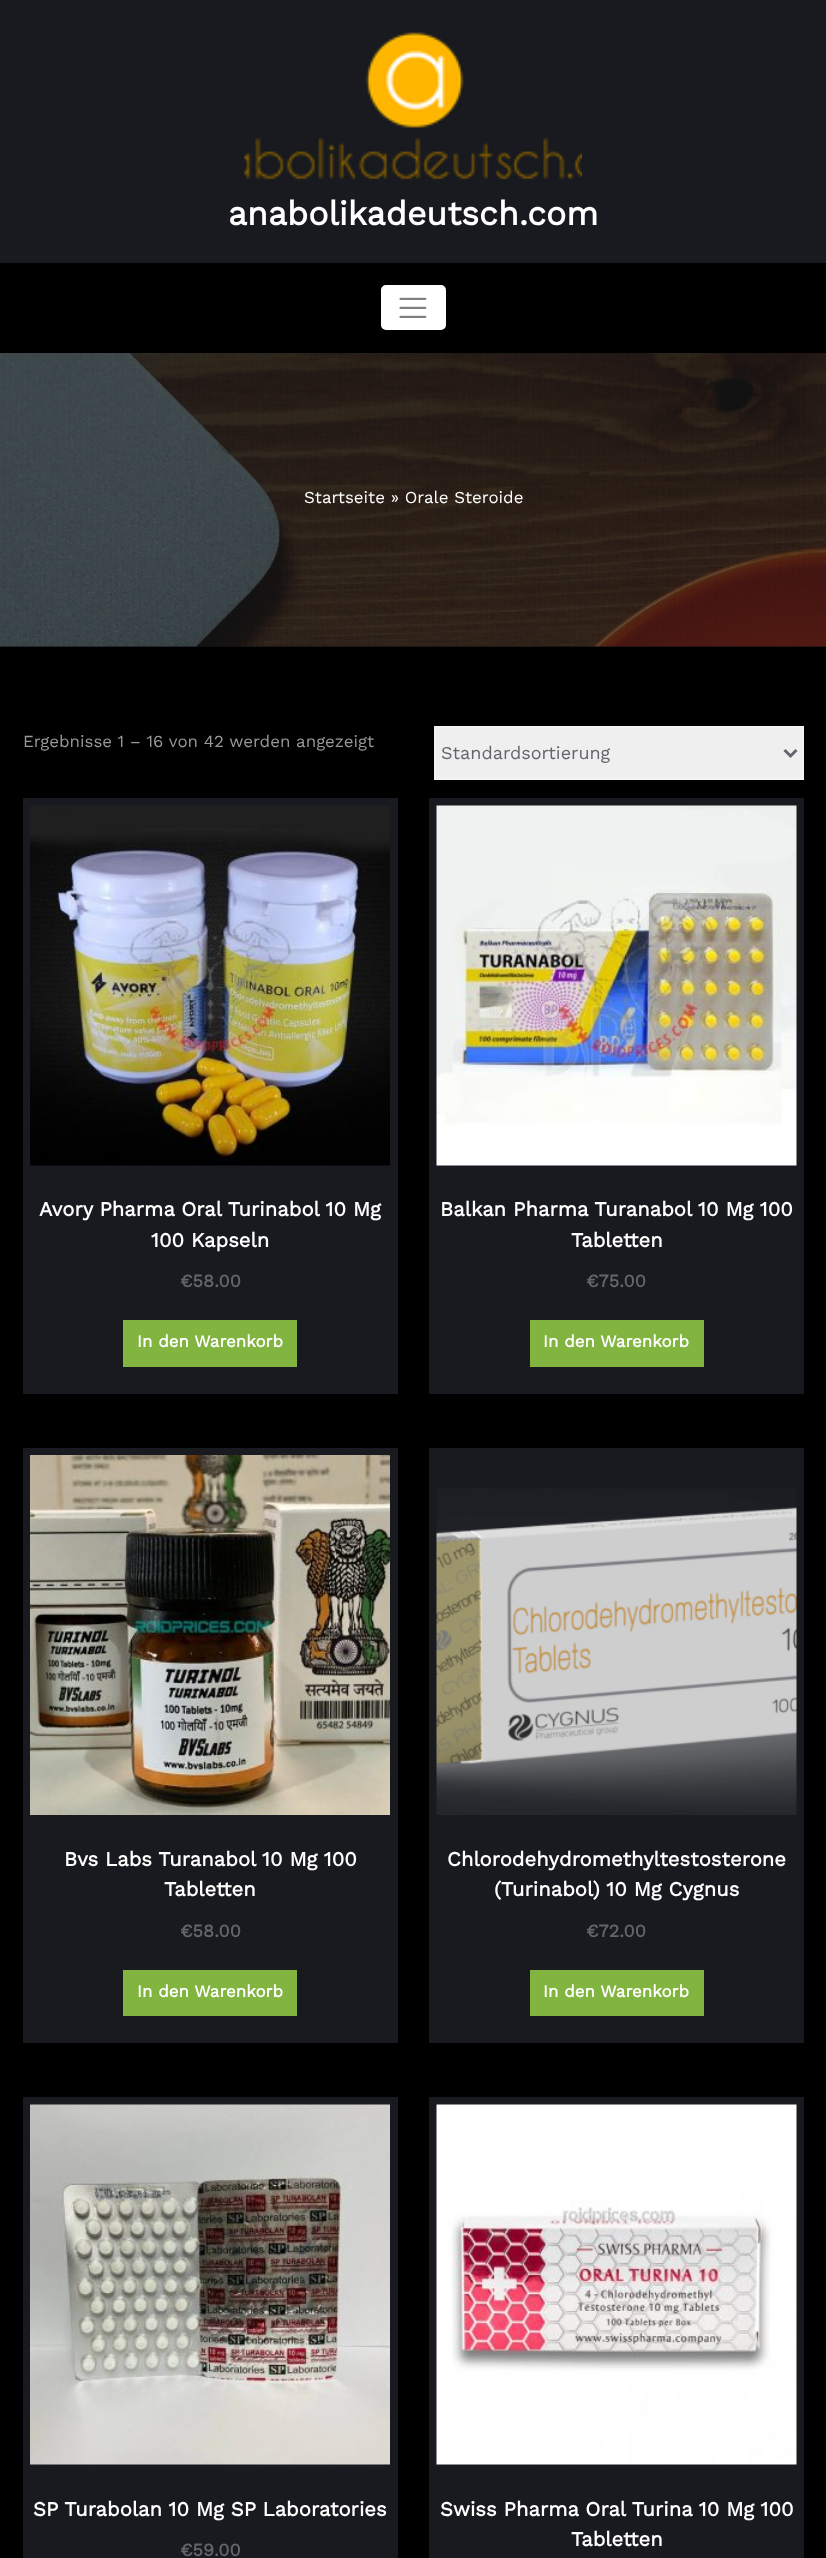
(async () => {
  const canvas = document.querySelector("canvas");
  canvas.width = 826;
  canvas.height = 2558;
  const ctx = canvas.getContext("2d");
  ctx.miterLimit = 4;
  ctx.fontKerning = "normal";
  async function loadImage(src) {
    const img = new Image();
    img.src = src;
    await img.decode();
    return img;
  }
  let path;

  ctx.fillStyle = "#000000";
  ctx.fillRect(0, 0, 826, 2558);
  ctx.fillStyle = "#181a1f";
  ctx.fillRect(0, 0, 826, 263);
  ctx.drawImage(await loadImage("img/1.png"), 244, 32, 338, 148);
  ctx.fillStyle = "#ffffff";
  ctx.beginPath();
  ctx.roundRect(382, 286, 63, 43, 4);
  ctx.fill();
  ctx.strokeStyle = "#ffffff";
  ctx.lineWidth = 2;
  ctx.stroke();
  ctx.drawImage(await loadImage("img/2.png"), 399, 297, 28, 21);
  ctx.fillStyle = "#090d12";
  ctx.fillRect(0, 646, 826, 1);
  ctx.drawImage(await loadImage("img/3.png"), 0, 353, 826, 294);
  ctx.fillStyle = "#efefef";
  ctx.beginPath();
  ctx.rect(435, 727, 368, 52);
  ctx.fill();
  ctx.strokeStyle = "#f3f3f3";
  ctx.stroke();
  path = new Path2D("M784.5 750L790.5 756L796.5 750");
  ctx.strokeStyle = "#64646d";
  ctx.lineWidth = 3;
  ctx.stroke(path);
  ctx.fillStyle = "#181a1f";
  ctx.fillRect(23, 798, 375, 596);
  ctx.drawImage(await loadImage("img/4.png"), 30, 806, 360, 360);
  ctx.fillStyle = "#82b440";
  ctx.fillRect(123, 1320, 174, 47);
  ctx.fillStyle = "#181a1f";
  ctx.fillRect(429, 798, 375, 596);
  ctx.drawImage(await loadImage("img/5.png"), 436, 805, 361, 361);
  ctx.fillStyle = "#82b440";
  ctx.fillRect(530, 1320, 174, 47);
  ctx.fillStyle = "#181a1f";
  ctx.fillRect(23, 1448, 375, 595);
  ctx.drawImage(await loadImage("img/6.png"), 30, 1455, 360, 360);
  ctx.fillStyle = "#82b440";
  ctx.fillRect(123, 1970, 174, 46);
  ctx.fillStyle = "#181a1f";
  ctx.fillRect(429, 1448, 375, 595);
  ctx.drawImage(await loadImage("img/7.png"), 436, 1488, 361, 327);
  ctx.fillStyle = "#82b440";
  ctx.fillRect(530, 1970, 174, 46);
  ctx.fillStyle = "#181a1f";
  ctx.fillRect(23, 2097, 375, 461);
  ctx.drawImage(await loadImage("img/8.png"), 30, 2104, 360, 361);
  ctx.fillRect(429, 2097, 375, 461);
  ctx.drawImage(await loadImage("img/9.png"), 436, 2104, 361, 361);
  ctx.font = "bold 33.75px Work Sans";
  ctx.fillStyle = "#ffffff";
  ctx.fillText("anabolikadeutsch.com", 228, 225);
  ctx.font = "16.9px Work Sans";
  ctx.fillText("Startseite » Orale Steroide", 304, 503);
  ctx.fillStyle = "#999999";
  ctx.fillText("Ergebnisse 1 – 16 von 42 werden angezeigt", 23, 747);
  ctx.font = "18px Work Sans";
  ctx.fillStyle = "#64646d";
  ctx.fillText("Standardsortierung", 441, 759);
  ctx.font = "bold 20.25px Work Sans";
  ctx.fillStyle = "#ffffff";
  ctx.fillText("Avory Pharma Oral Turinabol 10 Mg", 39, 1216);
  ctx.fillText("100 Kapseln", 151, 1247);
  ctx.font = "bold 18px Work Sans";
  ctx.fillStyle = "#64646d";
  ctx.fillText("€58.00", 180, 1287);
  ctx.font = "bold 16.9px Work Sans";
  ctx.fillStyle = "#ffffff";
  ctx.fillText("In den Warenkorb", 137, 1347);
  ctx.font = "bold 20.25px Work Sans";
  ctx.fillText("Balkan Pharma Turanabol 10 Mg 100", 440, 1216);
  ctx.fillText("Tabletten", 571, 1247);
  ctx.font = "bold 18px Work Sans";
  ctx.fillStyle = "#64646d";
  ctx.fillText("€75.00", 586, 1287);
  ctx.font = "bold 16.9px Work Sans";
  ctx.fillStyle = "#ffffff";
  ctx.fillText("In den Warenkorb", 543, 1347);
  ctx.font = "bold 20.25px Work Sans";
  ctx.fillText("Bvs Labs Turanabol 10 Mg 100", 64, 1866);
  ctx.fillText("Tabletten", 164, 1896);
  ctx.font = "bold 18px Work Sans";
  ctx.fillStyle = "#64646d";
  ctx.fillText("€58.00", 180, 1937);
  ctx.font = "bold 16.9px Work Sans";
  ctx.fillStyle = "#ffffff";
  ctx.fillText("In den Warenkorb", 137, 1997);
  ctx.font = "bold 20.25px Work Sans";
  ctx.fillText("Chlorodehydromethyltestosterone", 447, 1866);
  ctx.fillText("(Turinabol) 10 Mg Cygnus", 494, 1896);
  ctx.font = "bold 18px Work Sans";
  ctx.fillStyle = "#64646d";
  ctx.fillText("€72.00", 586, 1937);
  ctx.font = "bold 16.9px Work Sans";
  ctx.fillStyle = "#ffffff";
  ctx.fillText("In den Warenkorb", 543, 1997);
  ctx.font = "bold 20.25px Work Sans";
  ctx.fillText("SP Turabolan 10 Mg SP Laboratories", 33, 2516);
  ctx.font = "bold 18px Work Sans";
  ctx.fillStyle = "#64646d";
  ctx.fillText("€59.00", 180, 2556);
  ctx.font = "bold 20.25px Work Sans";
  ctx.fillStyle = "#ffffff";
  ctx.fillText("Swiss Pharma Oral Turina 10 Mg 100", 440, 2516);
  ctx.fillText("Tabletten", 571, 2546);
})();
